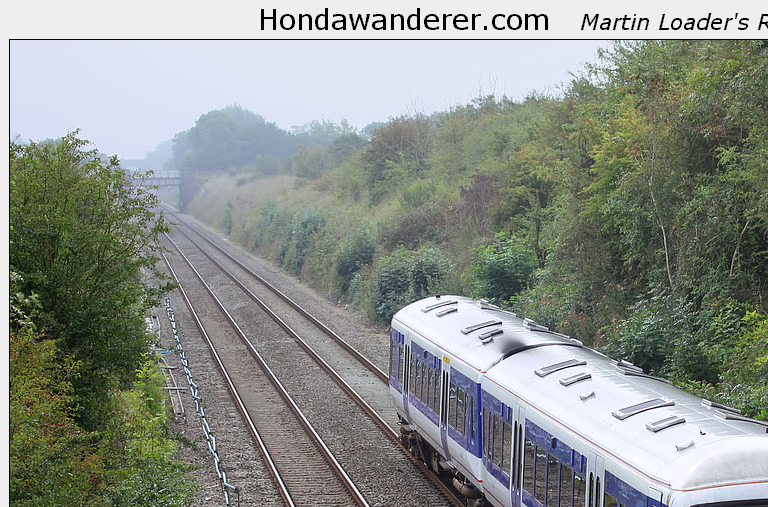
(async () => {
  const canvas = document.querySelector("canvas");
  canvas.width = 768;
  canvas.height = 507;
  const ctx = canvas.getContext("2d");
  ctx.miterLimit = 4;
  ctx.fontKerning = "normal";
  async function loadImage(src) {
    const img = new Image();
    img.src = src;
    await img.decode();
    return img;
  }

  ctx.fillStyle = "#eeeeee";
  ctx.fillRect(0, 0, 768, 507);
  ctx.drawImage(await loadImage("img/1.png"), 261, 8, 507, 22);
  ctx.strokeStyle = "#000000";
  ctx.strokeRect(9.5, 39.5, 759, 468);
  ctx.drawImage(await loadImage("img/2.png"), 10, 40, 758, 467);
})();
